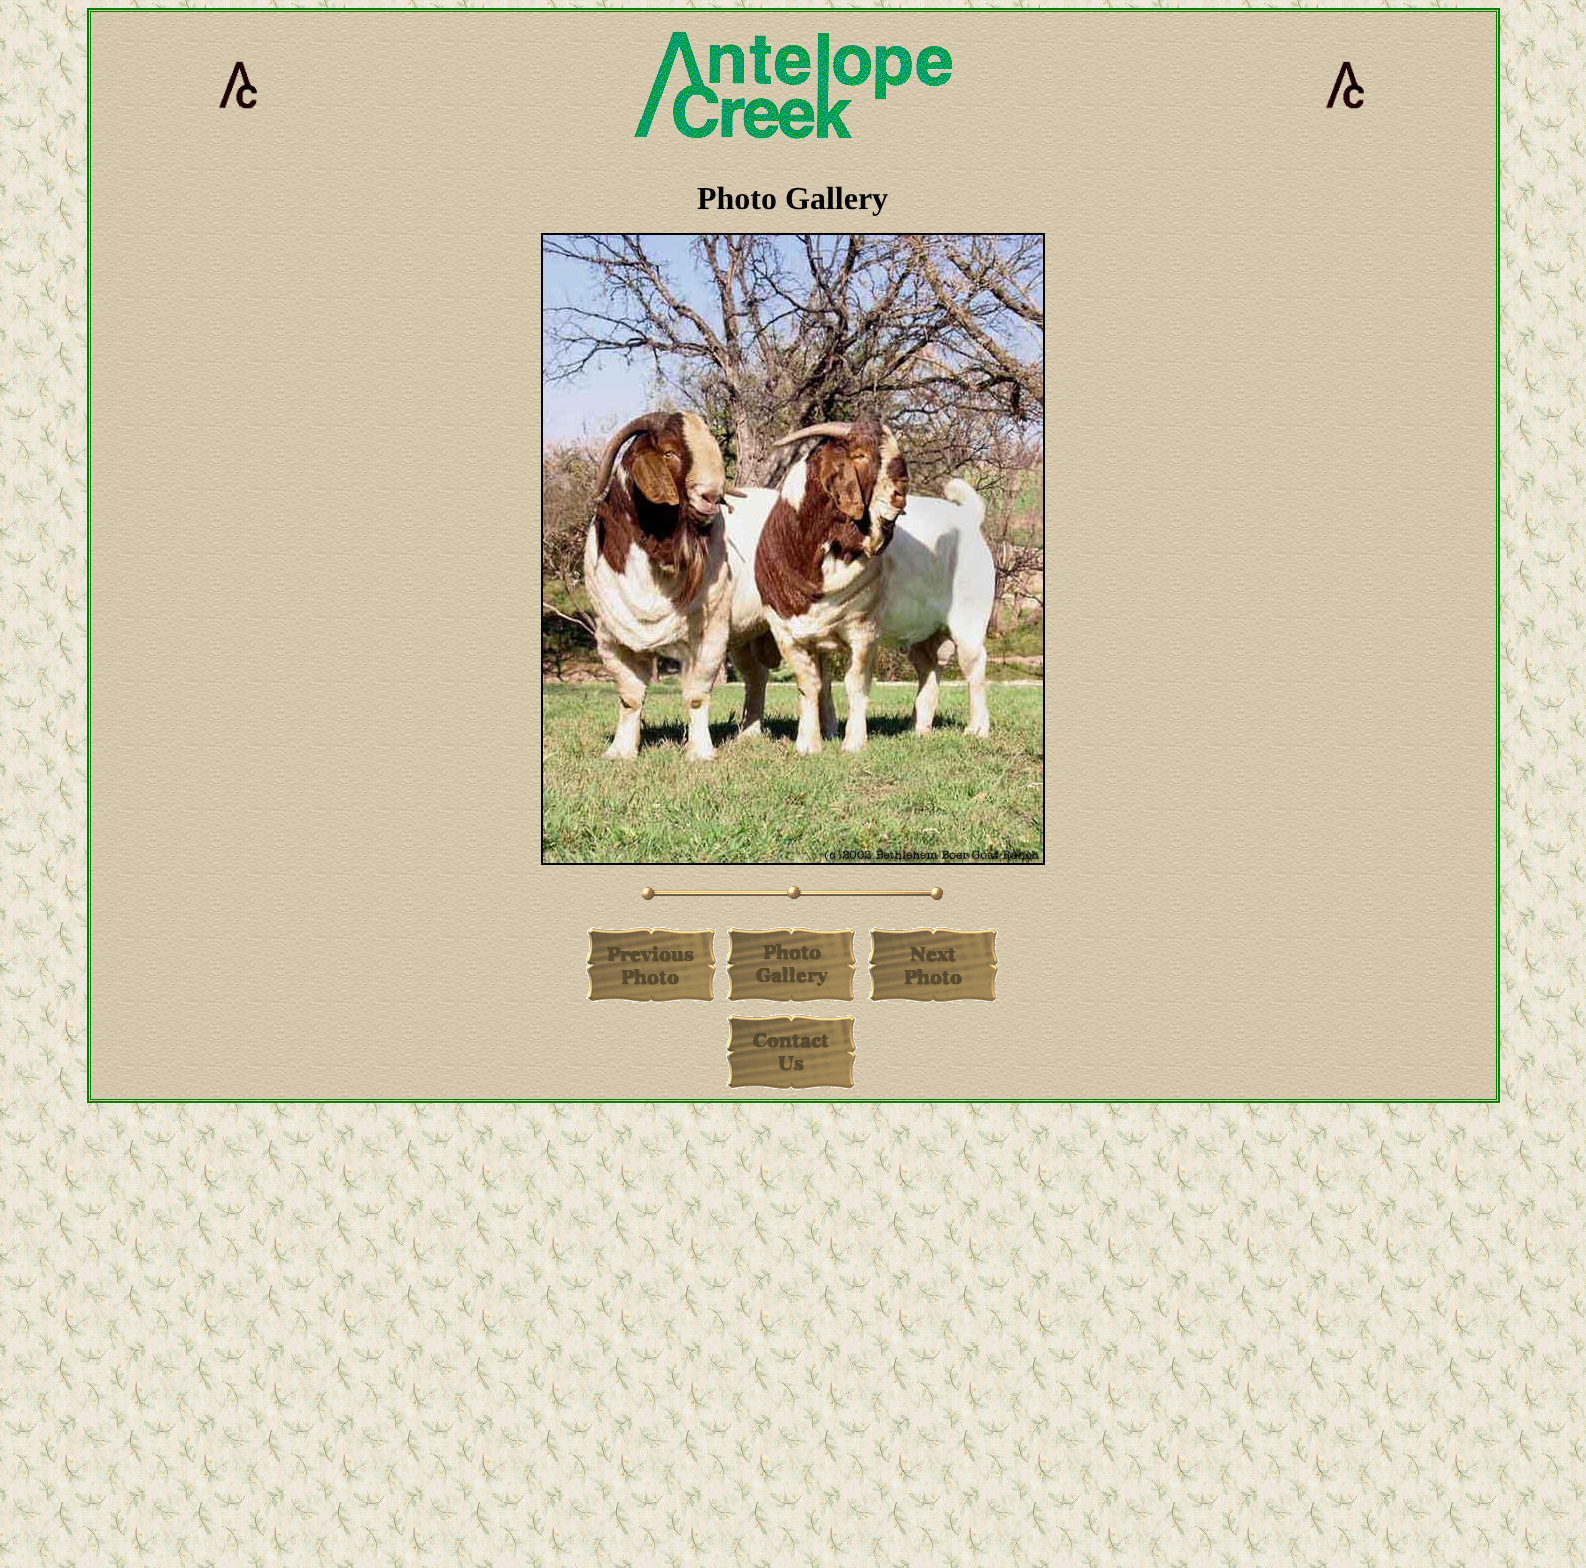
(async () => {
  const canvas = document.querySelector("canvas");
  canvas.width = 1586;
  canvas.height = 1568;
  const ctx = canvas.getContext("2d");
  ctx.miterLimit = 4;
  ctx.fontKerning = "normal";
  async function loadImage(src) {
    const img = new Image();
    img.src = src;
    await img.decode();
    return img;
  }

  ctx.fillStyle = "#ffffff";
  ctx.fillRect(0, 0, 1586, 1568);
  ctx.drawImage(await loadImage("img/1.png"), 0, 0, 1586, 1568);
  ctx.drawImage(await loadImage("img/2.png"), 89, 10, 1409, 1091);
  ctx.strokeStyle = "#008000";
  ctx.lineWidth = 2;
  ctx.strokeRect(88, 9, 1411, 1093);
  ctx.lineWidth = 1;
  ctx.strokeRect(90.5, 11.5, 1406, 1088);
  ctx.drawImage(await loadImage("img/3.png"), 218, 61, 39, 48);
  ctx.drawImage(await loadImage("img/4.png"), 634, 31, 318, 108);
  ctx.drawImage(await loadImage("img/5.png"), 1325, 61, 39, 48);
  ctx.strokeStyle = "#000000";
  ctx.lineWidth = 2;
  ctx.strokeRect(542, 234, 502, 630);
  ctx.drawImage(await loadImage("img/6.png"), 543, 235, 500, 628);
  ctx.drawImage(await loadImage("img/7.png"), 642, 886, 301, 14);
  ctx.drawImage(await loadImage("img/8.png"), 586, 927, 131, 76);
  ctx.drawImage(await loadImage("img/9.png"), 726, 927, 131, 76);
  ctx.drawImage(await loadImage("img/10.png"), 868, 927, 131, 76);
  ctx.drawImage(await loadImage("img/11.png"), 726, 1014, 131, 76);
  ctx.font = "bold 32px Liberation Serif";
  ctx.fillStyle = "#000000";
  ctx.fillText("Photo Gallery", 697, 209);
})();
